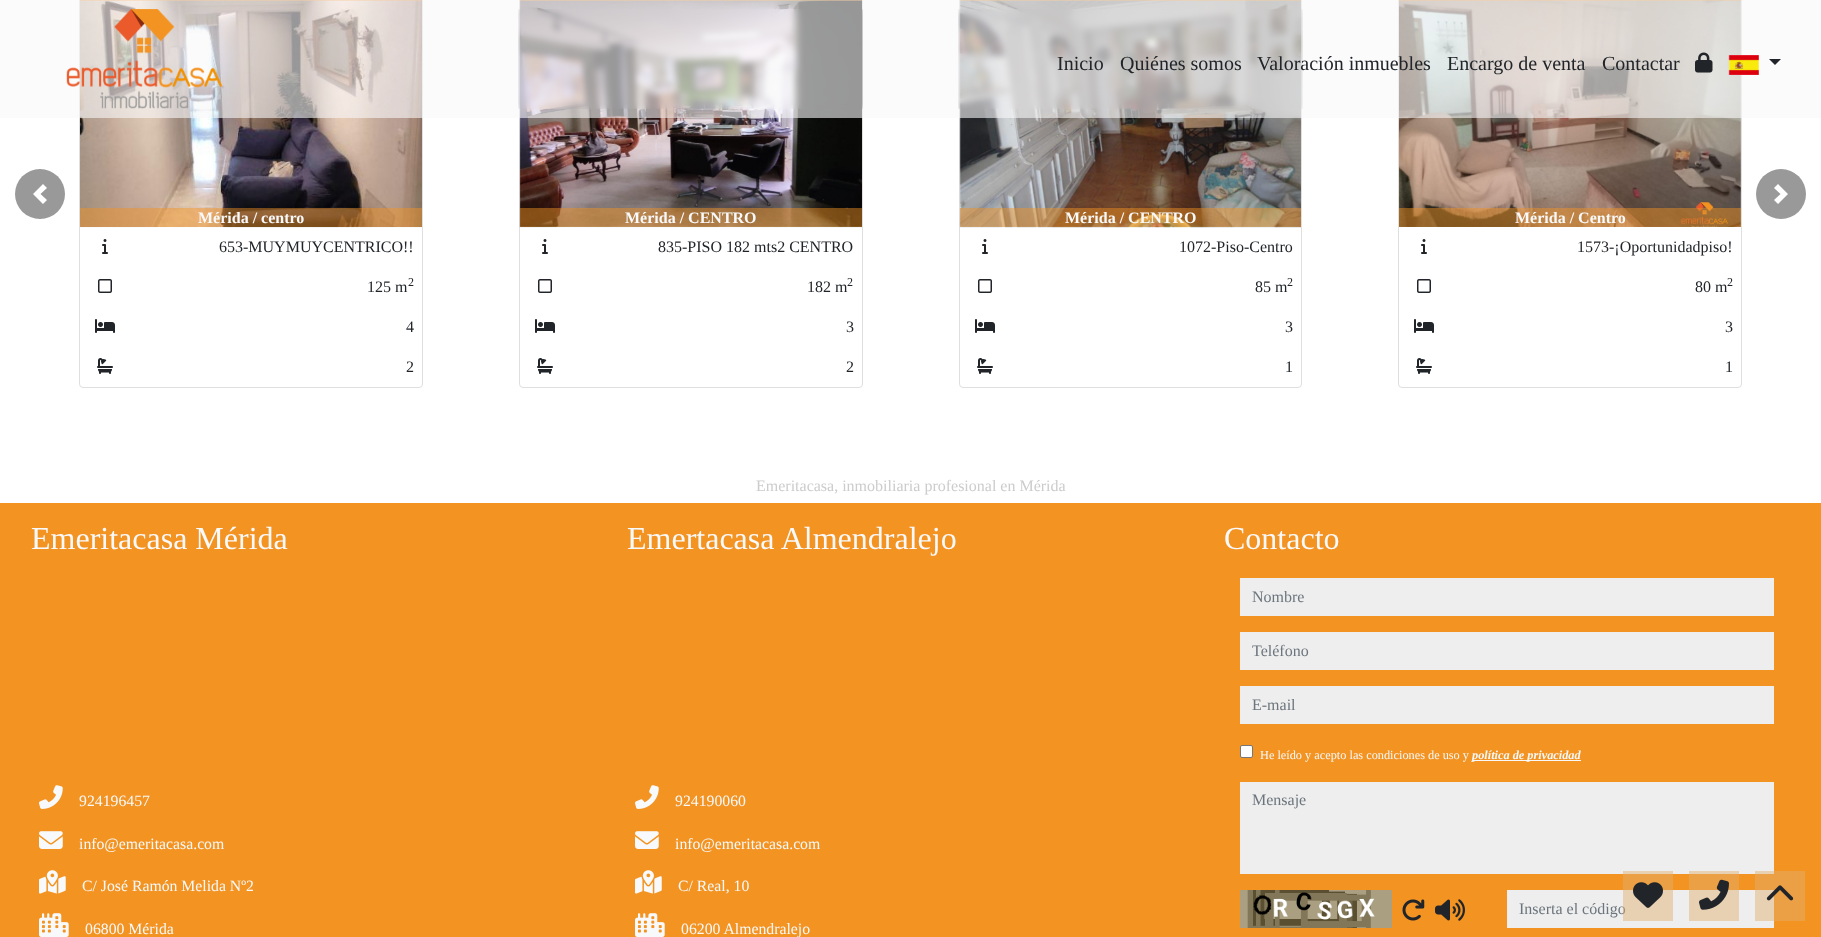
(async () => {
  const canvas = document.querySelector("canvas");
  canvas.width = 1821;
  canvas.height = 937;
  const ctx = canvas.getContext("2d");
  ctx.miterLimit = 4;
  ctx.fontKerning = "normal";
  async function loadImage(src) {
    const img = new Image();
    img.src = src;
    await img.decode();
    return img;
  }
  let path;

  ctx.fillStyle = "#ffffff";
  ctx.fillRect(0, 0, 1821, 937);
  ctx.beginPath();
  ctx.roundRect(79.5, -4.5, 343, 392, 3.5);
  ctx.strokeStyle = "#dfdfdf";
  ctx.stroke();
  ctx.drawImage(await loadImage("img/4.png"), 80, 0, 342, 228);
  ctx.fillStyle = "rgba(243, 147, 33, 0.47)";
  ctx.fillRect(80, 0, 342, 1);
  ctx.beginPath();
  ctx.roundRect(519.5, -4.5, 343, 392, 3.5);
  ctx.stroke();
  ctx.drawImage(await loadImage("img/9.png"), 518, 0, 345, 228);
  ctx.fillRect(520, 0, 342, 1);
  ctx.beginPath();
  ctx.roundRect(959.5, -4.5, 342, 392, 3.5);
  ctx.stroke();
  ctx.drawImage(await loadImage("img/10.png"), 958, 0, 345, 228);
  ctx.fillRect(960, 0, 341, 1);
  ctx.beginPath();
  ctx.roundRect(1398.5, -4.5, 343, 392, 3.5);
  ctx.stroke();
  ctx.drawImage(await loadImage("img/11.png"), 1399, 0, 342, 227);
  ctx.fillRect(1399, 0, 342, 1);
  ctx.fillStyle = "rgba(248, 249, 250, 0.6)";
  ctx.fillRect(0, 0, 1821, 118);
  ctx.drawImage(await loadImage("img/1.png"), 66, 9, 156, 100);
  ctx.drawImage(await loadImage("img/2.png"), 1695, 52, 18, 21);
  ctx.drawImage(await loadImage("img/3.png"), 1728, 55, 31, 20);
  ctx.fillStyle = "#212529";
  path = new Path2D("M1769 59H1781L1775 65Z");
  ctx.fill(path);
  ctx.fillStyle = "#999999";
  ctx.beginPath();
  ctx.arc(40, 194, 25, 0, Math.PI * 2);
  ctx.fill();
  ctx.fillStyle = "#ffffff";
  path = new Path2D("M43 184L33 194L43 204L47 200L40.5 194L47 188Z");
  ctx.fill(path);
  ctx.fillStyle = "#999999";
  ctx.beginPath();
  ctx.arc(1781, 194, 25, 0, Math.PI * 2);
  ctx.fill();
  ctx.fillStyle = "#ffffff";
  path = new Path2D("M1778 184L1774 188L1780.5 194L1774 200L1778 204L1788 194Z");
  ctx.fill(path);
  ctx.fillStyle = "rgba(243, 147, 33, 0.47)";
  ctx.fillRect(80, 208, 342, 19);
  ctx.drawImage(await loadImage("img/5.png"), 102, 239, 6, 15);
  ctx.drawImage(await loadImage("img/6.png"), 98, 279, 14, 14);
  ctx.drawImage(await loadImage("img/7.png"), 95, 319, 20, 14);
  ctx.drawImage(await loadImage("img/8.png"), 97, 358, 16, 16);
  ctx.fillRect(520, 208, 342, 19);
  ctx.drawImage(await loadImage("img/5.png"), 542, 239, 6, 15);
  ctx.drawImage(await loadImage("img/6.png"), 538, 279, 14, 14);
  ctx.drawImage(await loadImage("img/7.png"), 535, 319, 20, 14);
  ctx.drawImage(await loadImage("img/8.png"), 537, 358, 16, 16);
  ctx.fillRect(960, 208, 341, 19);
  ctx.drawImage(await loadImage("img/5.png"), 982, 239, 6, 15);
  ctx.drawImage(await loadImage("img/6.png"), 978, 279, 14, 14);
  ctx.drawImage(await loadImage("img/7.png"), 975, 319, 20, 14);
  ctx.drawImage(await loadImage("img/8.png"), 977, 358, 16, 16);
  ctx.fillRect(1399, 208, 342, 19);
  ctx.drawImage(await loadImage("img/5.png"), 1421, 239, 6, 15);
  ctx.drawImage(await loadImage("img/6.png"), 1417, 279, 14, 14);
  ctx.drawImage(await loadImage("img/7.png"), 1414, 319, 20, 14);
  ctx.drawImage(await loadImage("img/8.png"), 1416, 358, 16, 16);
  for (const [x, y, w, h, color] of [
    [0, 503, 1821, 434, "#f39321"],
    [1689, 874, 50, 16, "#eba046"],
    [1755, 871, 50, 50, "#eba046"],
  ]) {
    ctx.fillStyle = color;
    ctx.fillRect(x, y, w, h);
  }
  ctx.drawImage(await loadImage("img/12.png"), 39, 785, 24, 24);
  ctx.drawImage(await loadImage("img/13.png"), 39, 831, 24, 18);
  ctx.drawImage(await loadImage("img/14.png"), 39, 870, 27, 24);
  ctx.drawImage(await loadImage("img/15.png"), 39, 913, 30, 24);
  ctx.drawImage(await loadImage("img/12.png"), 635, 785, 24, 24);
  ctx.drawImage(await loadImage("img/13.png"), 635, 831, 24, 18);
  ctx.drawImage(await loadImage("img/14.png"), 635, 870, 27, 24);
  ctx.drawImage(await loadImage("img/15.png"), 635, 913, 30, 24);
  for (const [x, y, w, h, color] of [
    [1240, 578, 534, 38, "#eeeeee"],
    [1240, 632, 534, 38, "#eeeeee"],
    [1240, 686, 534, 38, "#eeeeee"],
  ]) {
    ctx.fillStyle = color;
    ctx.fillRect(x, y, w, h);
  }
  ctx.fillStyle = "#ffffff";
  ctx.beginPath();
  ctx.roundRect(1240.5, 745.5, 12, 12, 1.5);
  ctx.fill();
  ctx.strokeStyle = "#767676";
  ctx.stroke();
  for (const [x, y, w, h, color] of [
    [1472, 760, 109, 1, "#f8f9fa"],
    [1240, 782, 534, 92, "#eeeeee"],
    [1689, 871, 50, 3, "#e8d0b2"],
    [1755, 871, 19, 3, "#e8d0b2"],
  ]) {
    ctx.fillStyle = color;
    ctx.fillRect(x, y, w, h);
  }
  ctx.drawImage(await loadImage("img/16.png"), 1240, 890, 152, 38);
  ctx.drawImage(await loadImage("img/17.png"), 1402, 899, 23, 22);
  ctx.drawImage(await loadImage("img/18.png"), 1435, 899, 30, 22);
  for (const [x, y, w, h, color] of [
    [1507, 890, 267, 38, "#eeeeee"],
    [1689, 890, 50, 31, "#e8d0b2"],
    [1755, 890, 19, 31, "#e8d0b2"],
  ]) {
    ctx.fillStyle = color;
    ctx.fillRect(x, y, w, h);
  }
  ctx.drawImage(await loadImage("img/20.png"), 1699, 879, 30, 31);
  ctx.drawImage(await loadImage("img/21.png"), 1766, 885, 28, 16);
  ctx.font = "20px Liberation Serif";
  ctx.fillStyle = "#212529";
  for (const [text, x, y] of [
    ["Inicio", 1057, 70],
    ["Quiénes somos", 1120, 70],
    ["Valoración inmuebles", 1257, 70],
    ["Encargo de venta", 1447, 70],
    ["Contactar", 1602, 70],
  ]) {
    ctx.fillText(text, x, y);
  }
  ctx.font = "bold 16px Liberation Serif";
  ctx.fillStyle = "#f8f9fa";
  ctx.fillText("Mérida / centro", 198, 223);
  ctx.font = "16px Liberation Serif";
  ctx.fillStyle = "#212529";
  ctx.fillText("653-MUYMUYCENTRICO!!", 219, 252);
  ctx.fillText("125 m", 367, 292);
  ctx.font = "12px Liberation Serif";
  ctx.fillText("2", 408, 286);
  ctx.font = "16px Liberation Serif";
  ctx.fillText("4", 406, 332);
  ctx.fillText("2", 406, 372);
  ctx.font = "bold 16px Liberation Serif";
  ctx.fillStyle = "#f8f9fa";
  ctx.fillText("Mérida / CENTRO", 625, 223);
  ctx.font = "16px Liberation Serif";
  ctx.fillStyle = "#212529";
  ctx.fillText("835-PISO 182 mts2 CENTRO", 658, 252);
  ctx.fillText("182 m", 807, 292);
  ctx.font = "12px Liberation Serif";
  ctx.fillText("2", 847, 286);
  ctx.font = "16px Liberation Serif";
  ctx.fillText("3", 846, 332);
  ctx.fillText("2", 846, 372);
  ctx.font = "bold 16px Liberation Serif";
  ctx.fillStyle = "#f8f9fa";
  ctx.fillText("Mérida / CENTRO", 1065, 223);
  ctx.font = "16px Liberation Serif";
  ctx.fillStyle = "#212529";
  ctx.fillText("1072-Piso-Centro", 1179, 252);
  ctx.fillText("85 m", 1255, 292);
  ctx.font = "12px Liberation Serif";
  ctx.fillText("2", 1287, 286);
  ctx.font = "16px Liberation Serif";
  ctx.fillText("3", 1285, 332);
  ctx.fillText("1", 1285, 372);
  ctx.font = "bold 16px Liberation Serif";
  ctx.fillStyle = "#f8f9fa";
  ctx.fillText("Mérida / Centro", 1515, 223);
  ctx.font = "16px Liberation Serif";
  ctx.fillStyle = "#212529";
  ctx.fillText("1573-¡Oportunidadpiso!", 1577, 252);
  ctx.fillText("80 m", 1695, 292);
  ctx.font = "12px Liberation Serif";
  ctx.fillText("2", 1727, 286);
  ctx.font = "16px Liberation Serif";
  ctx.fillText("3", 1725, 332);
  ctx.fillText("1", 1725, 372);
  ctx.fillStyle = "#cccccc";
  ctx.fillText("Emeritacasa, inmobiliaria profesional en Mérida", 756, 491);
  ctx.font = "32px Liberation Serif";
  ctx.fillStyle = "#f8f9fa";
  ctx.fillText("Emeritacasa Mérida", 31, 549);
  ctx.font = "15.75px Liberation Serif";
  for (const [text, x, y] of [
    ["924196457", 79, 806],
    ["info@emeritacasa.com", 79, 849],
    ["C/ José Ramón Melida Nº2", 82, 891],
    ["06800 Mérida", 85, 934],
  ]) {
    ctx.fillText(text, x, y);
  }
  ctx.font = "32px Liberation Serif";
  ctx.fillText("Emertacasa Almendralejo", 627, 549);
  ctx.font = "15.75px Liberation Serif";
  for (const [text, x, y] of [
    ["924190060", 675, 806],
    ["info@emeritacasa.com", 675, 849],
    ["C/ Real, 10", 678, 891],
    ["06200 Almendralejo", 681, 934],
  ]) {
    ctx.fillText(text, x, y);
  }
  ctx.font = "32px Liberation Serif";
  ctx.fillText("Contacto", 1224, 549);
  ctx.font = "16px Liberation Serif";
  ctx.fillStyle = "#6c757d";
  for (const [text, x, y] of [
    ["Nombre", 1252, 602],
    ["Teléfono", 1252, 656],
    ["E-mail", 1252, 710],
  ]) {
    ctx.fillText(text, x, y);
  }
  ctx.font = "12.3px Liberation Serif";
  ctx.fillStyle = "#f8f9fa";
  ctx.fillText("He leído y acepto las condiciones de uso y", 1260, 759);
  ctx.font = "italic bold 12.3px Liberation Serif";
  ctx.fillText("política de privacidad", 1472, 759);
  ctx.font = "16px Liberation Serif";
  ctx.fillStyle = "#6c757d";
  ctx.fillText("Mensaje", 1252, 805);
  ctx.fillText("Inserta el código", 1519, 914);
  ctx.fillStyle = "rgba(226, 174, 111, 0.47)";
  ctx.fillRect(1623, 871, 50, 50);
  ctx.drawImage(await loadImage("img/19.png"), 1633, 882, 30, 26);
})();
